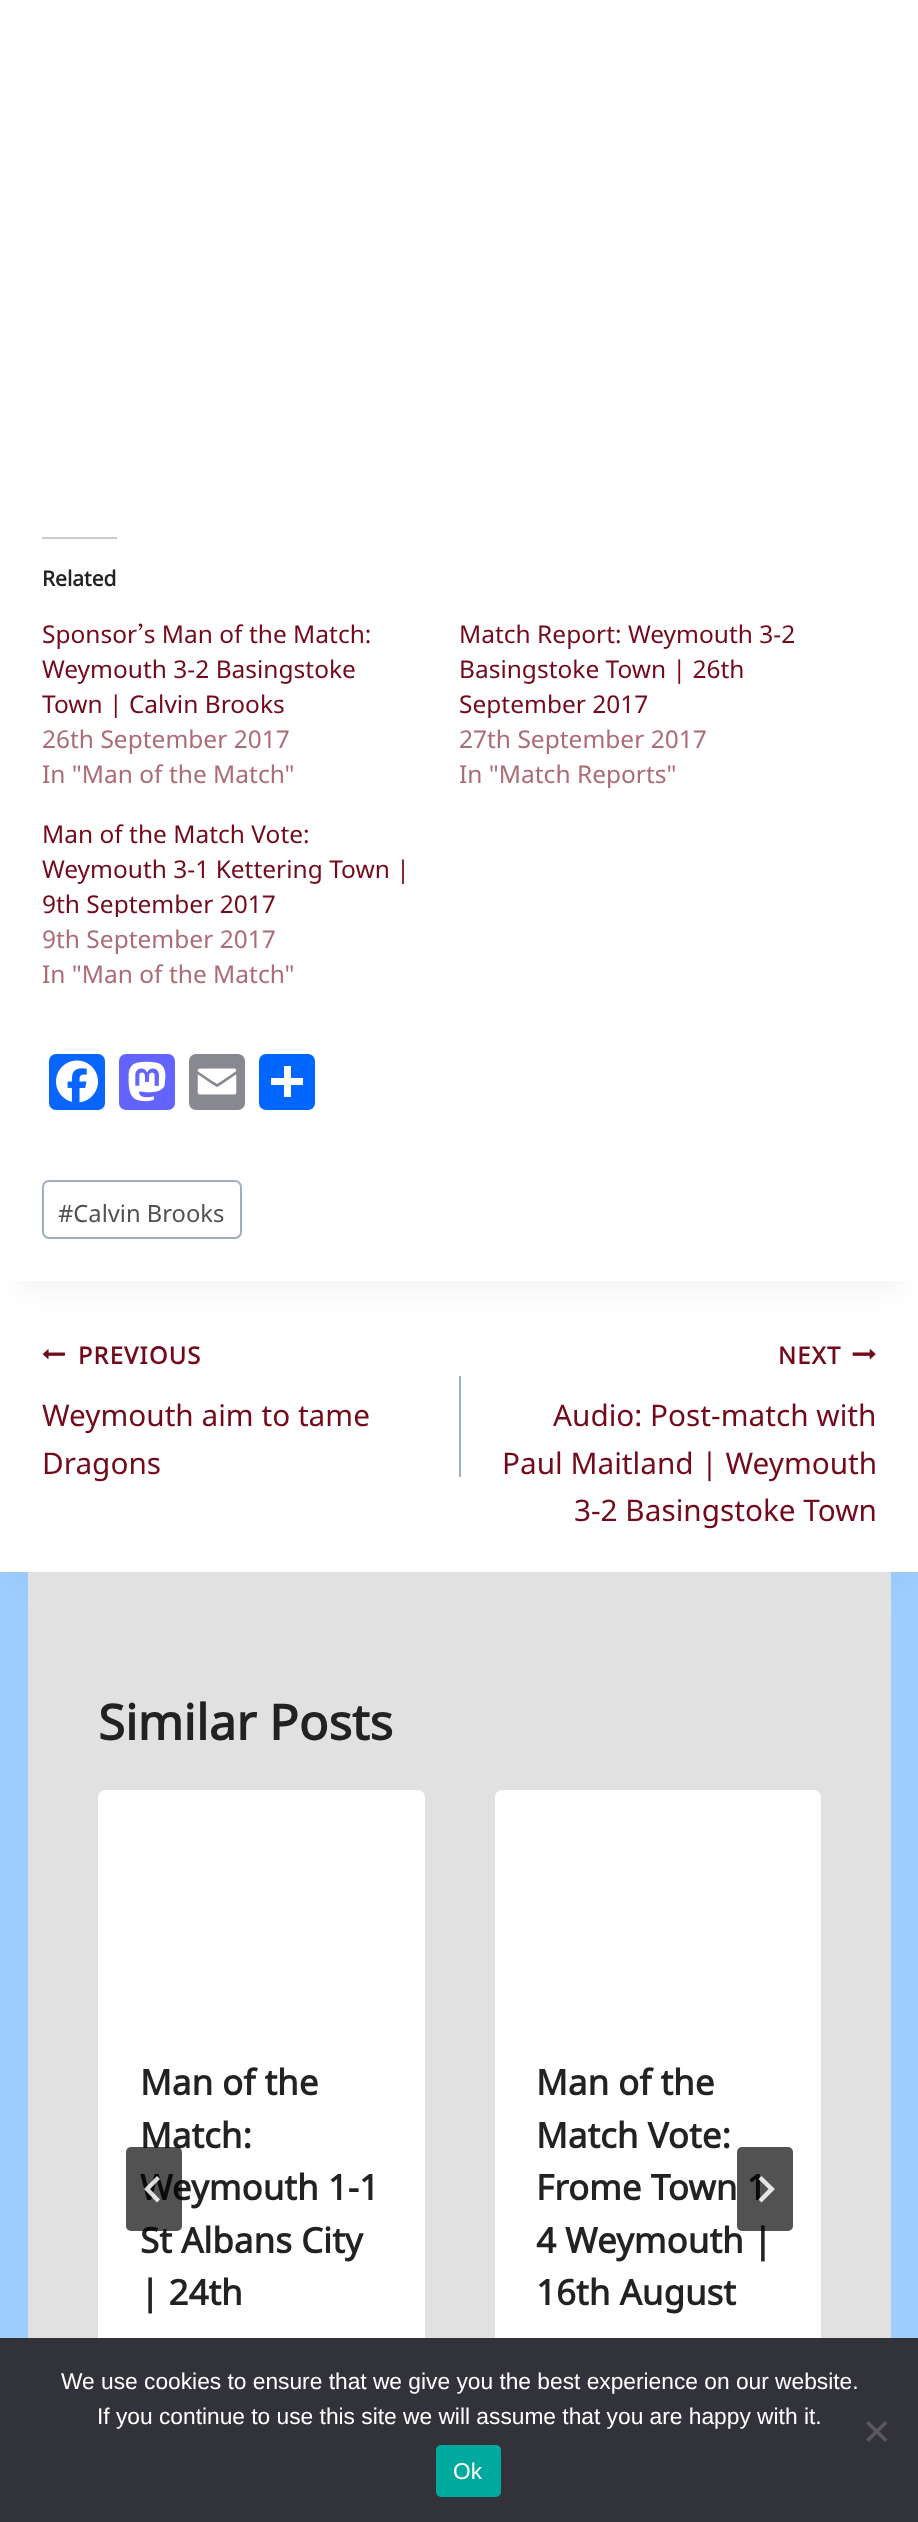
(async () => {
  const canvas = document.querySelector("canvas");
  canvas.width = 918;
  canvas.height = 2522;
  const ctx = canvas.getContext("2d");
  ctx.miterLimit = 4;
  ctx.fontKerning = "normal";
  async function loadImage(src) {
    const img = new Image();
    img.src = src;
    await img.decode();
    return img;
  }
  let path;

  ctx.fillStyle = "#9dceff";
  ctx.fillRect(0, 0, 918, 2522);
  ctx.fillStyle = "rgba(0, 0, 0, 0.05)";
  ctx.filter = "blur(22px)";
  ctx.beginPath();
  ctx.rect(18, 1325, 883, 255);
  ctx.fill();
  ctx.filter = "none";
  ctx.fillStyle = "#ffffff";
  ctx.fillRect(0, 1281, 918, 291);
  ctx.fillStyle = "rgba(0, 0, 0, 0.05)";
  ctx.filter = "blur(13px)";
  ctx.beginPath();
  ctx.rect(18, -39, 883, 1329);
  ctx.fill();
  ctx.filter = "none";
  ctx.fillStyle = "#ffffff";
  ctx.fillRect(0, 0, 918, 1281);
  ctx.fillStyle = "#cccccc";
  ctx.fillRect(42, 537, 75, 2);
  ctx.fillStyle = "#0866ff";
  ctx.beginPath();
  ctx.roundRect(49, 1054, 56, 56, 7);
  ctx.fill();
  ctx.drawImage(await loadImage("img/1.png"), 56, 1060, 42, 43);
  ctx.fillStyle = "#6364ff";
  ctx.beginPath();
  ctx.roundRect(119, 1054, 56, 56, 7);
  ctx.fill();
  ctx.drawImage(await loadImage("img/2.png"), 128, 1061, 38, 41);
  ctx.fillStyle = "#888990";
  ctx.beginPath();
  ctx.roundRect(189, 1054, 56, 56, 7);
  ctx.fill();
  ctx.drawImage(await loadImage("img/3.png"), 197, 1068, 40, 27);
  ctx.fillStyle = "#0166ff";
  ctx.beginPath();
  ctx.roundRect(259, 1054, 56, 56, 7);
  ctx.fill();
  ctx.fillStyle = "#ffffff";
  ctx.fillRect(284, 1066, 7, 31);
  ctx.fillRect(271, 1078, 32, 7);
  ctx.beginPath();
  ctx.roundRect(43, 1181, 198, 57, 6);
  ctx.strokeStyle = "#a0aec0";
  ctx.lineWidth = 2;
  ctx.stroke();
  ctx.drawImage(await loadImage("img/4.png"), 42, 1349, 23, 10);
  ctx.fillStyle = "#a0aec0";
  ctx.fillRect(459, 1376, 2, 101);
  ctx.drawImage(await loadImage("img/5.png"), 852, 1349, 24, 11);
  ctx.fillStyle = "#e1e1e1";
  ctx.fillRect(28, 1572, 863, 766);
  ctx.fillStyle = "#ffffff";
  ctx.beginPath();
  ctx.roundRect(98, 1790, 327, 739, 7);
  ctx.fill();
  ctx.beginPath();
  ctx.roundRect(495, 1790, 326, 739, 7);
  ctx.fill();
  ctx.fillStyle = "#32323a";
  ctx.fillRect(0, 2338, 918, 184);
  ctx.fillStyle = "#59595d";
  path = new Path2D("M885 2421L887.5 2423.5L868.5 2442L866 2439.5Z");
  ctx.fill(path);
  path = new Path2D("M866 2423.5L868.5 2421L887.5 2439.5L885 2442Z");
  ctx.fill(path);
  ctx.fillStyle = "#00a99d";
  ctx.beginPath();
  ctx.roundRect(436, 2445, 65, 52, 5);
  ctx.fill();
  ctx.font = "bold 21px Noto Sans Mongolian";
  ctx.fillStyle = "#222222";
  ctx.fillText("Related", 42, 586);
  ctx.font = "24.5px Noto Sans Mongolian";
  ctx.fillStyle = "#730a1b";
  ctx.fillText("Sponsor’s Man of the Match:", 42, 643);
  ctx.fillText("Weymouth 3-2 Basingstoke", 42, 678);
  ctx.save();
  ctx.beginPath();
  ctx.rect(42, 613, 376, 105);
  ctx.clip();
  ctx.fillText("Town | Calvin Brooks", 42, 713);
  ctx.restore();
  ctx.fillStyle = "#ab6c76";
  ctx.fillText("26th September 2017", 42, 748);
  ctx.fillText("In \"Man of the Match\"", 42, 783);
  ctx.fillStyle = "#730a1b";
  ctx.fillText("Match Report: Weymouth 3-2", 459, 643);
  ctx.fillText("Basingstoke Town | 26th", 459, 678);
  ctx.save();
  ctx.beginPath();
  ctx.rect(460, 613, 375, 105);
  ctx.clip();
  ctx.fillText("September 2017", 459, 713);
  ctx.restore();
  ctx.fillStyle = "#ab6c76";
  ctx.fillText("27th September 2017", 459, 748);
  ctx.save();
  ctx.beginPath();
  ctx.rect(460, 753, 375, 35);
  ctx.clip();
  ctx.fillText("In \"Match Reports\"", 459, 783);
  ctx.restore();
  ctx.fillStyle = "#730a1b";
  ctx.fillText("Man of the Match Vote:", 42, 843);
  ctx.fillText("Weymouth 3-1 Kettering Town |", 42, 878);
  ctx.save();
  ctx.beginPath();
  ctx.rect(42, 812, 376, 105);
  ctx.clip();
  ctx.fillText("9th September 2017", 42, 913);
  ctx.restore();
  ctx.fillStyle = "#ab6c76";
  ctx.fillText("9th September 2017", 42, 948);
  ctx.fillText("In \"Man of the Match\"", 42, 983);
  ctx.font = "23.75px Noto Sans Mongolian";
  ctx.fillStyle = "#515151";
  ctx.fillText("#Calvin Brooks", 58, 1222);
  ctx.letterSpacing = "1.25px";
  ctx.font = "bold 23.75px Noto Sans Mongolian";
  ctx.fillStyle = "#730a1b";
  ctx.fillText("PREVIOUS", 78, 1364);
  ctx.letterSpacing = "0px";
  ctx.font = "29.75px Noto Sans Mongolian";
  ctx.fillText("Weymouth aim to tame", 42, 1426);
  ctx.fillText("Dragons", 42, 1474);
  ctx.letterSpacing = "1.25px";
  ctx.font = "bold 23.75px Noto Sans Mongolian";
  ctx.fillText("NEXT", 778, 1364);
  ctx.letterSpacing = "0px";
  ctx.font = "29.75px Noto Sans Mongolian";
  for (const [text, x, y] of [
    ["Audio: Post-match with", 553, 1426],
    ["Paul Maitland | Weymouth", 502, 1474],
    ["3-2 Basingstoke Town", 574, 1521],
  ]) {
    ctx.fillText(text, x, y);
  }
  ctx.font = "bold 49px Noto Sans Mongolian";
  ctx.fillStyle = "#222222";
  ctx.fillText("Similar Posts", 98, 1740);
  ctx.font = "bold 35px Noto Sans Mongolian";
  for (const [text, x, y] of [
    ["Man of the", 140, 2095],
    ["Match:", 140, 2148],
    ["Weymouth 1-1", 140, 2200],
    ["St Albans City", 140, 2253],
    ["| 24th", 140, 2305],
    ["Man of the", 536, 2095],
    ["Match Vote:", 536, 2148],
    ["Frome Town 1", 536, 2200],
    ["4 Weymouth |", 536, 2253],
    ["16th August", 536, 2305],
  ]) {
    ctx.fillText(text, x, y);
  }
  ctx.fillStyle = "rgba(0, 0, 0, 0.68)";
  ctx.beginPath();
  ctx.roundRect(126, 2147, 56, 84, 5);
  ctx.fill();
  ctx.fillStyle = "rgba(255, 255, 255, 0.85)";
  path = new Path2D("M157 2176L160 2179L150 2189L160 2199.5L157 2202.5L144 2189Z");
  ctx.fill(path);
  ctx.fillStyle = "rgba(0, 0, 0, 0.68)";
  ctx.beginPath();
  ctx.roundRect(737, 2147, 56, 84, 5);
  ctx.fill();
  ctx.fillStyle = "rgba(255, 255, 255, 0.85)";
  path = new Path2D("M761.5 2176L758.5 2179L768.5 2189L758.5 2199.5L761.5 2202.5L775 2189Z");
  ctx.fill(path);
  ctx.font = "22.75px Liberation Sans";
  ctx.fillStyle = "#ffffff";
  for (const [text, x, y] of [
    ["We use cookies to ensure that we give you the best experience on our website.", 61, 2389],
    ["If you continue to use this site we will assume that you are happy with it.", 97, 2424],
    ["Ok", 453, 2479],
  ]) {
    ctx.fillText(text, x, y);
  }
})();
